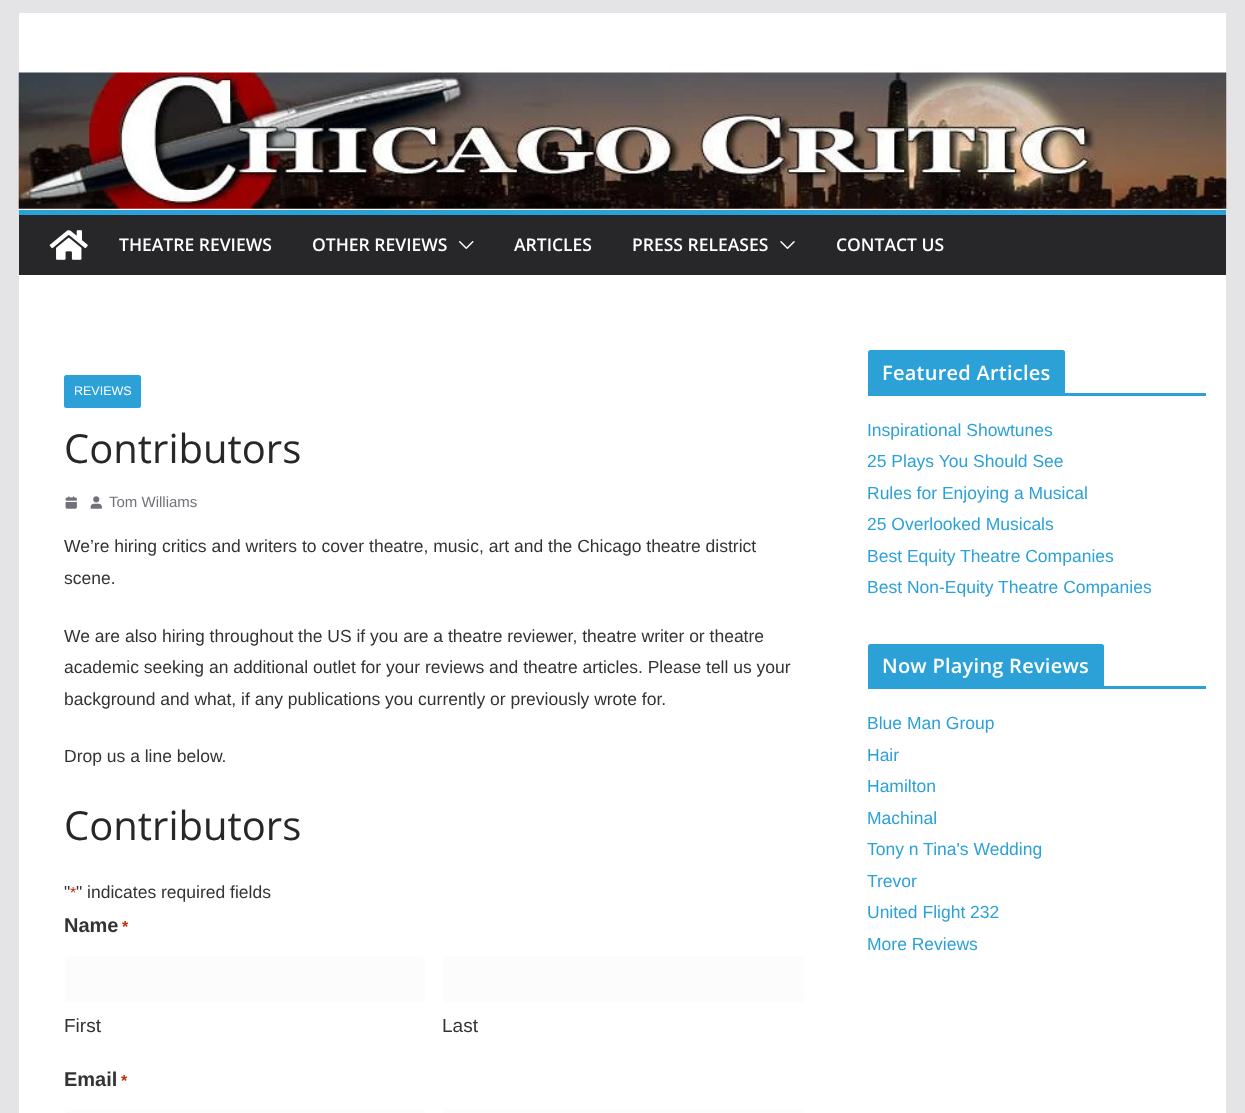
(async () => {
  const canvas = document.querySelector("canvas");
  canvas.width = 1245;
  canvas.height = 1113;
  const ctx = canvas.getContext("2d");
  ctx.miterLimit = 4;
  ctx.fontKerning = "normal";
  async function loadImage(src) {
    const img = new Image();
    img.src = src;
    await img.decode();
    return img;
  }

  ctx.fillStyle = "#e4e4e7";
  ctx.fillRect(0, 0, 1245, 1113);
  ctx.fillStyle = "#ffffff";
  ctx.fillRect(19, 13, 1207, 197);
  ctx.drawImage(await loadImage("img/1.png"), 18, 72, 1209, 137);
  ctx.fillStyle = "#27272a";
  ctx.fillRect(19, 215, 1207, 60);
  ctx.fillStyle = "#2ba1d8";
  ctx.fillRect(19, 210, 1207, 5);
  ctx.drawImage(await loadImage("img/2.png"), 49, 230, 39, 30);
  ctx.drawImage(await loadImage("img/3.png"), 459, 241, 15, 8);
  ctx.drawImage(await loadImage("img/4.png"), 780, 241, 15, 8);
  ctx.fillStyle = "#ffffff";
  ctx.fillRect(19, 275, 1207, 838);
  ctx.fillStyle = "#2ba1d8";
  ctx.beginPath();
  ctx.roundRect(64, 375, 77, 33, 2.5);
  ctx.fill();
  ctx.drawImage(await loadImage("img/5.png"), 65, 496, 12, 13);
  ctx.drawImage(await loadImage("img/6.png"), 90, 496, 12, 13);
  ctx.fillStyle = "#fcfcfc";
  ctx.beginPath();
  ctx.roundRect(64.5, 955.5, 361, 47, 4.5);
  ctx.fill();
  ctx.strokeStyle = "#ffffff";
  ctx.stroke();
  ctx.beginPath();
  ctx.roundRect(441.5, 955.5, 363, 47, 4.5);
  ctx.fill();
  ctx.stroke();
  ctx.beginPath();
  ctx.roundRect(64.5, 1108.5, 361, 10, 4.5);
  ctx.fill();
  ctx.stroke();
  ctx.beginPath();
  ctx.roundRect(441.5, 1108.5, 363, 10, 4.5);
  ctx.fill();
  ctx.stroke();
  ctx.fillStyle = "#2ba1d8";
  ctx.fillRect(868, 393, 338, 3);
  ctx.beginPath();
  ctx.roundRect(868, 350, 197, 43, [2.5, 2.5, 0, 0]);
  ctx.fill();
  ctx.fillRect(868, 686, 338, 3);
  ctx.beginPath();
  ctx.roundRect(868, 644, 236, 42, [2.5, 2.5, 0, 0]);
  ctx.fill();
  ctx.font = "600 17.5px Open Sans";
  ctx.fillStyle = "#ffffff";
  for (const [text, x, y] of [
    ["THEATRE REVIEWS", 119, 251],
    ["OTHER REVIEWS", 312, 251],
    ["ARTICLES", 514, 251],
    ["PRESS RELEASES", 632, 251],
    ["CONTACT US", 836, 251],
  ]) {
    ctx.fillText(text, x, y);
  }
  ctx.font = "12.5px Liberation Sans";
  ctx.fillText("REVIEWS", 74, 395);
  ctx.font = "40px Open Sans";
  ctx.fillStyle = "#27272a";
  ctx.fillText("Contributors", 64, 463);
  ctx.font = "15px Liberation Sans";
  ctx.fillStyle = "#71717a";
  ctx.fillText("Tom Williams", 109, 507);
  ctx.font = "17.5px Liberation Sans";
  ctx.fillStyle = "#333333";
  for (const [text, x, y] of [
    ["We’re hiring critics and writers to cover theatre, music, art and the Chicago theatre district", 64, 552],
    ["scene.", 64, 584],
    ["We are also hiring throughout the US if you are a theatre reviewer, theatre writer or theatre", 64, 642],
    ["academic seeking an additional outlet for your reviews and theatre articles. Please tell us your", 64, 673],
    ["background and what, if any publications you currently or previously wrote for.", 64, 705],
    ["Drop us a line below.", 64, 762],
  ]) {
    ctx.fillText(text, x, y);
  }
  ctx.font = "40px Open Sans";
  ctx.fillStyle = "#27272a";
  ctx.fillText("Contributors", 64, 840);
  ctx.font = "17.5px Liberation Sans";
  ctx.fillStyle = "#333333";
  ctx.fillText("\"", 64, 898);
  ctx.font = "16px Liberation Sans";
  ctx.fillStyle = "#c02b0a";
  ctx.fillText("*", 70, 898);
  ctx.font = "17.5px Liberation Sans";
  ctx.fillStyle = "#333333";
  ctx.fillText("\" indicates required fields", 76, 898);
  ctx.font = "bold 20px Liberation Sans";
  ctx.fillText("Name", 64, 932);
  ctx.font = "bold 16px Liberation Sans";
  ctx.fillStyle = "#c02b0a";
  ctx.fillText("*", 122, 932);
  ctx.font = "19px Liberation Sans";
  ctx.fillStyle = "#333333";
  ctx.fillText("First", 64, 1032);
  ctx.fillText("Last", 442, 1032);
  ctx.font = "bold 20px Liberation Sans";
  ctx.fillText("Email", 64, 1086);
  ctx.font = "bold 16px Liberation Sans";
  ctx.fillStyle = "#c02b0a";
  ctx.fillText("*", 121, 1086);
  ctx.letterSpacing = "0.25px";
  ctx.font = "600 20px Open Sans";
  ctx.fillStyle = "#ffffff";
  ctx.fillText("Featured Articles", 882, 380);
  ctx.letterSpacing = "0px";
  ctx.font = "17.5px Liberation Sans";
  ctx.fillStyle = "#2ba1d8";
  for (const [text, x, y] of [
    ["Inspirational Showtunes", 867, 436],
    ["25 Plays You Should See", 867, 467],
    ["Rules for Enjoying a Musical", 867, 499],
    ["25 Overlooked Musicals", 867, 530],
    ["Best Equity Theatre Companies", 867, 562],
    ["Best Non-Equity Theatre Companies", 867, 593],
  ]) {
    ctx.fillText(text, x, y);
  }
  ctx.letterSpacing = "0.25px";
  ctx.font = "600 20px Open Sans";
  ctx.fillStyle = "#ffffff";
  ctx.fillText("Now Playing Reviews", 882, 673);
  ctx.letterSpacing = "0px";
  ctx.font = "17.5px Liberation Sans";
  ctx.fillStyle = "#2ba1d8";
  for (const [text, x, y] of [
    ["Blue Man Group", 867, 729],
    ["Hair", 867, 761],
    ["Hamilton", 867, 792],
    ["Machinal", 867, 824],
    ["Tony n Tina's Wedding", 867, 855],
    ["Trevor", 867, 887],
    ["United Flight 232", 867, 918],
    ["More Reviews", 867, 950],
  ]) {
    ctx.fillText(text, x, y);
  }
})();
